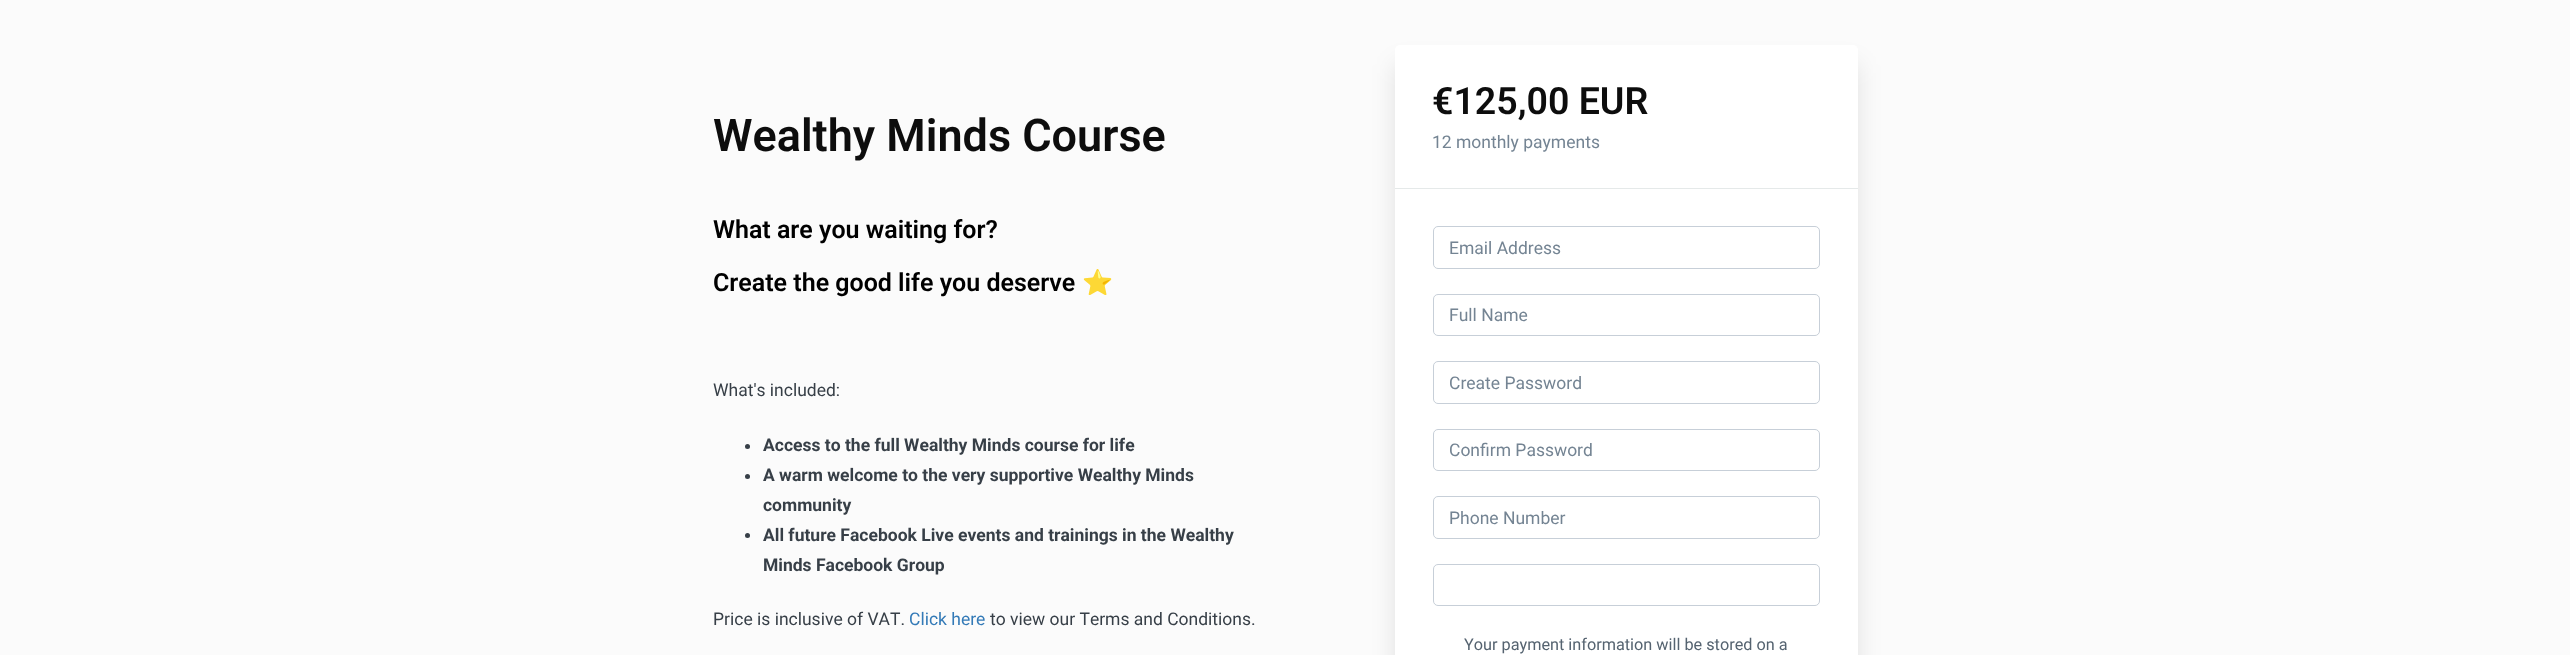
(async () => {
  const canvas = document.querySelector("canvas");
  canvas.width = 2570;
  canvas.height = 655;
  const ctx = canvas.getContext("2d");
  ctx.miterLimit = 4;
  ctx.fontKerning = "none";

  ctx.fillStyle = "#fbfbfb";
  ctx.fillRect(0, 0, 2570, 655);
  ctx.fillStyle = "#373f47";
  ctx.beginPath();
  ctx.arc(747.5, 446.5, 2.5, 0, Math.PI * 2);
  ctx.fill();
  ctx.beginPath();
  ctx.arc(747.5, 476.5, 2.5, 0, Math.PI * 2);
  ctx.fill();
  ctx.beginPath();
  ctx.arc(747.5, 535.5, 2.5, 0, Math.PI * 2);
  ctx.fill();
  ctx.fillStyle = "rgba(0, 0, 0, 0.1)";
  ctx.filter = "blur(12.5px)";
  ctx.beginPath();
  ctx.roundRect(1395, 64, 463, 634, 5);
  ctx.fill();
  ctx.filter = "none";
  ctx.fillStyle = "#ffffff";
  ctx.beginPath();
  ctx.roundRect(1395, 45, 463, 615, 5);
  ctx.fill();
  ctx.fillStyle = "#e5e9e9";
  ctx.fillRect(1395, 188, 463, 1);
  ctx.beginPath();
  ctx.roundRect(1433.5, 226.5, 386, 42, 4.5);
  ctx.strokeStyle = "#c7cfd8";
  ctx.stroke();
  ctx.beginPath();
  ctx.roundRect(1433.5, 294.5, 386, 41, 4.5);
  ctx.stroke();
  ctx.beginPath();
  ctx.roundRect(1433.5, 361.5, 386, 42, 4.5);
  ctx.stroke();
  ctx.beginPath();
  ctx.roundRect(1433.5, 429.5, 386, 41, 4.5);
  ctx.stroke();
  ctx.beginPath();
  ctx.roundRect(1433.5, 496.5, 386, 42, 4.5);
  ctx.stroke();
  ctx.beginPath();
  ctx.roundRect(1433.5, 564.5, 386, 41, 4.5);
  ctx.stroke();
  ctx.font = "600 45px Roboto";
  ctx.fillStyle = "#0d0d0d";
  ctx.fillText("Wealthy Minds Course", 713, 151);
  ctx.font = "600 25px Roboto";
  ctx.fillStyle = "#000000";
  ctx.fillText("What are you waiting for?", 713, 238);
  ctx.fillText("Create the good life you deserve", 713, 291);
  ctx.font = "bold 25px Noto Color Emoji";
  ctx.fillText("⭐", 1082, 291);
  ctx.font = "17.5px Roboto";
  ctx.fillStyle = "#373f47";
  ctx.fillText("What's included:", 713, 396);
  ctx.font = "bold 17.5px Roboto";
  for (const [text, x, y] of [
    ["Access to the full Wealthy Minds course for life", 763, 451],
    ["A warm welcome to the very supportive Wealthy Minds", 763, 481],
    ["community", 763, 511],
    ["All future Facebook Live events and trainings in the Wealthy", 763, 541],
    ["Minds Facebook Group", 763, 571],
  ]) {
    ctx.fillText(text, x, y);
  }
  ctx.font = "17.5px Roboto";
  ctx.fillText("Price is inclusive of VAT.", 713, 625);
  ctx.fillStyle = "#337ab7";
  ctx.fillText("Click here", 909, 625);
  ctx.fillStyle = "#373f47";
  ctx.fillText("to view our Terms and Conditions.", 990, 625);
  ctx.font = "600 37.5px Roboto";
  ctx.fillStyle = "#0d0d0d";
  ctx.fillText("€125,00 EUR", 1432, 114);
  ctx.font = "17.5px Roboto";
  ctx.fillStyle = "#748493";
  for (const [text, x, y] of [
    ["12 monthly payments", 1432, 148],
    ["Email Address", 1449, 254],
    ["Full Name", 1449, 321],
    ["Create Password", 1449, 389],
    ["Confirm Password", 1449, 456],
    ["Phone Number", 1449, 524],
  ]) {
    ctx.fillText(text, x, y);
  }
  ctx.font = "16.25px Roboto";
  ctx.fillStyle = "#556370";
  ctx.fillText("Your payment information will be stored on a", 1464, 650);
})();
